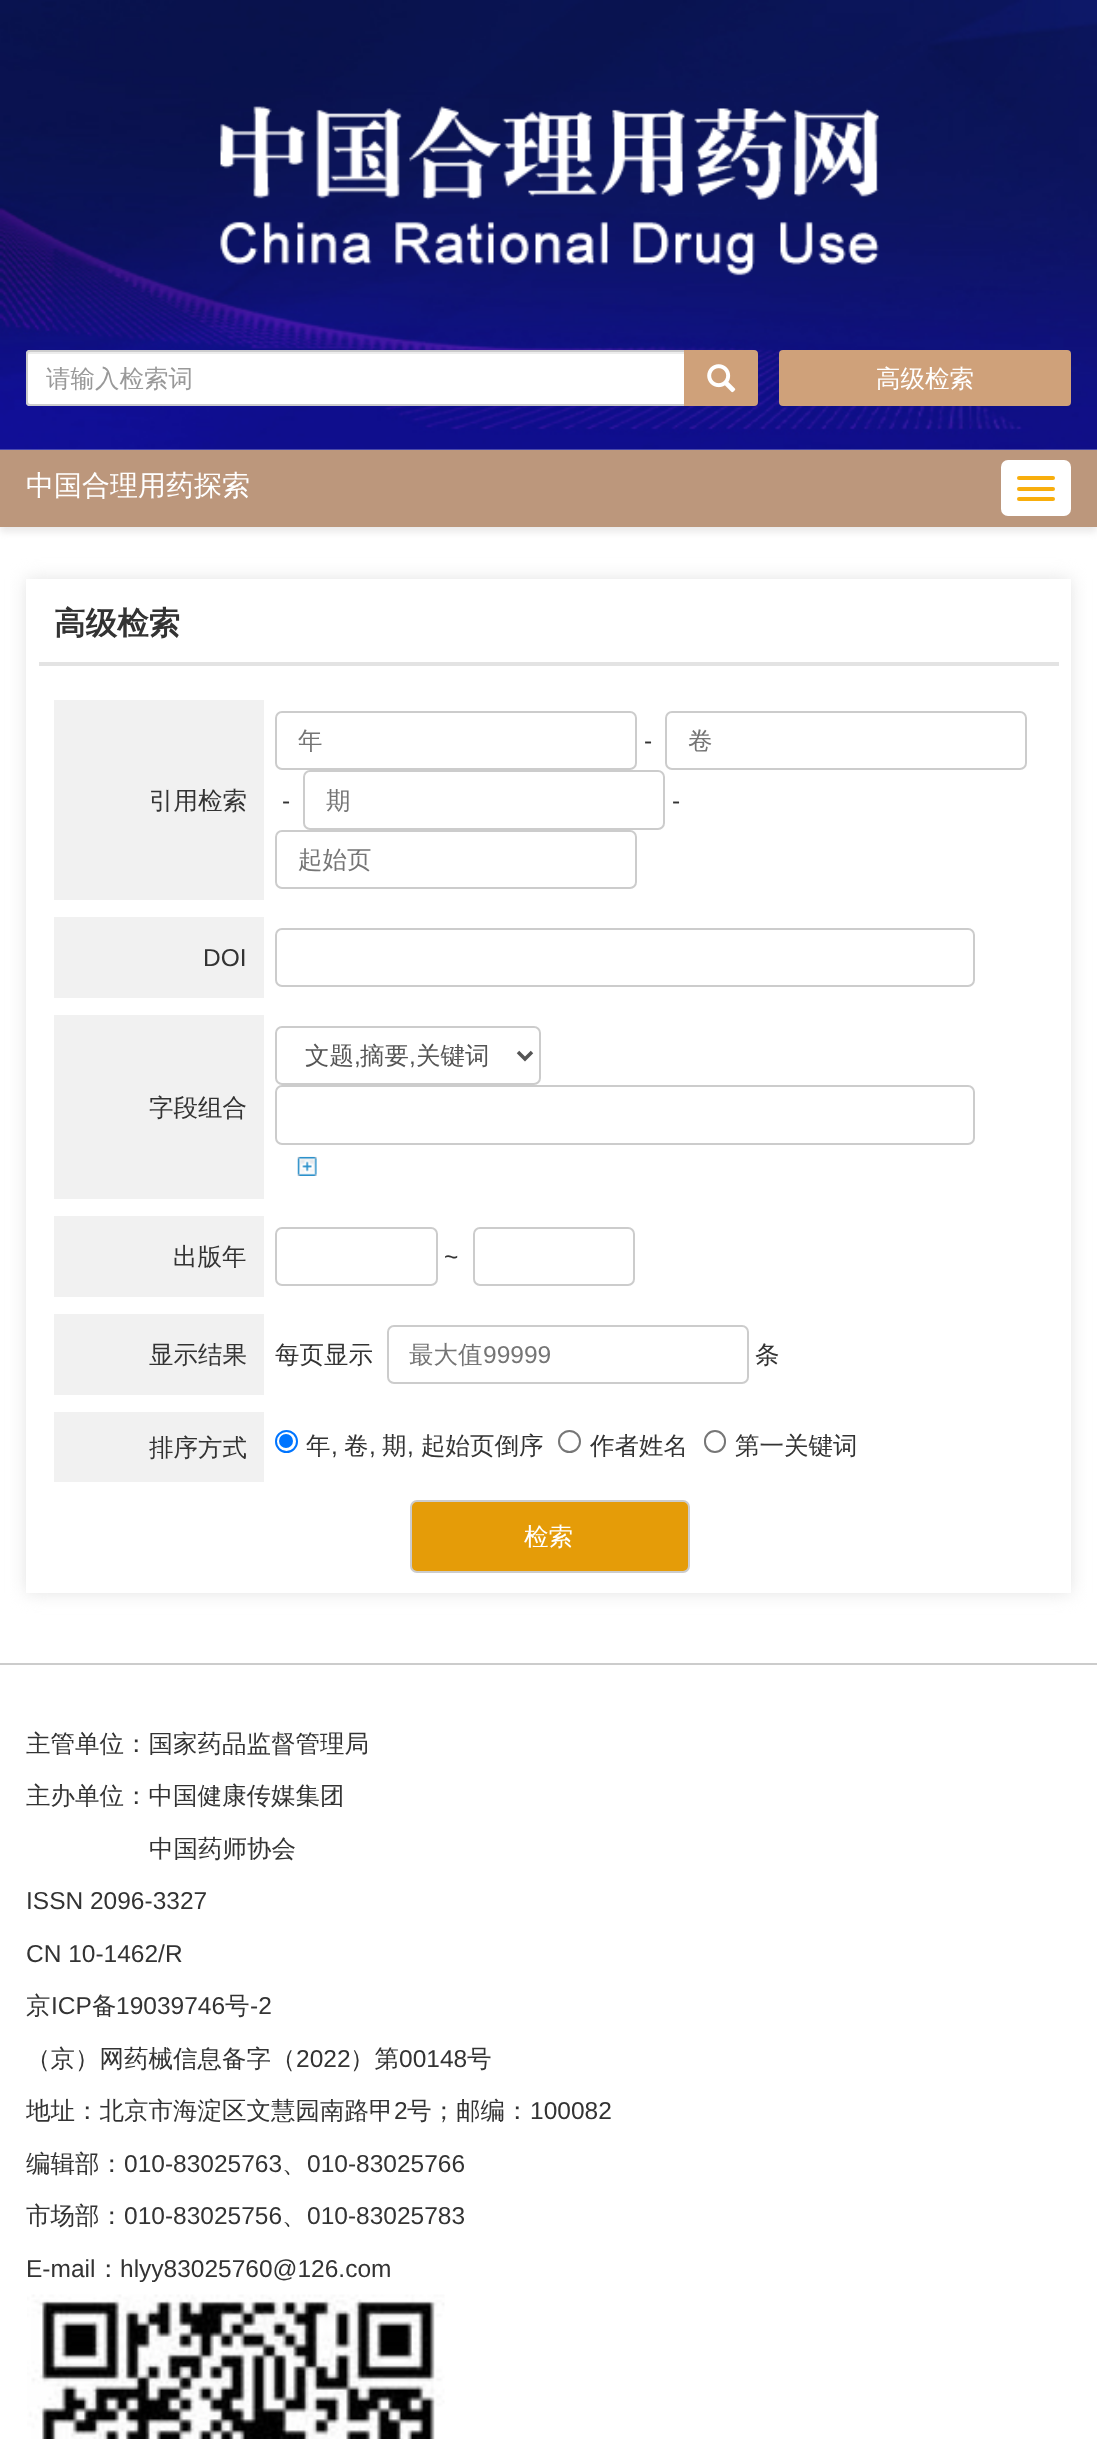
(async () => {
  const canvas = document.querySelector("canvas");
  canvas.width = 1097;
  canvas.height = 2439;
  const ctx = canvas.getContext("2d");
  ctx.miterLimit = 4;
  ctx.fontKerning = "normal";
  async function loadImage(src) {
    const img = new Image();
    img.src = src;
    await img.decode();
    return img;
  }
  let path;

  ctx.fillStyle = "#ffffff";
  ctx.fillRect(0, 0, 1097, 2439);
  ctx.fillStyle = "#eae9e9";
  ctx.filter = "blur(3.5px)";
  ctx.beginPath();
  ctx.rect(0, 455, 1097, 77);
  ctx.fill();
  ctx.filter = "none";
  ctx.drawImage(await loadImage("img/1.png"), 0, 0, 1097, 450);
  ctx.drawImage(await loadImage("img/2.png"), 220, 106, 659, 170);
  ctx.fillStyle = "#ffffff";
  ctx.beginPath();
  ctx.roundRect(26, 350, 660, 56, [4, 0, 0, 4]);
  ctx.fill();
  ctx.fillStyle = "#ececec";
  path = new Path2D("M30 354H684V352H30C28 352 28 354 28 355C28 354 29 354 30 354Z");
  ctx.fill(path);
  ctx.beginPath();
  ctx.roundRect(27, 351, 658, 54, [3, 0, 0, 3]);
  ctx.strokeStyle = "#cccccc";
  ctx.lineWidth = 2;
  ctx.stroke();
  ctx.fillStyle = "#cfa17a";
  ctx.beginPath();
  ctx.roundRect(685, 351, 72, 54, [0, 3, 3, 0]);
  ctx.fill();
  ctx.strokeStyle = "#cfa17a";
  ctx.stroke();
  ctx.drawImage(await loadImage("img/3.png"), 707, 364, 29, 29);
  ctx.beginPath();
  ctx.roundRect(779, 350, 292, 56, 4);
  ctx.fill();
  ctx.fillStyle = "#bc977c";
  ctx.fillRect(0, 450, 1097, 77);
  ctx.fillStyle = "#ffffff";
  ctx.beginPath();
  ctx.roundRect(1001, 460, 70, 56, 7);
  ctx.fill();
  ctx.fillStyle = "#f8ae0d";
  ctx.beginPath();
  ctx.roundRect(1017, 476, 38, 4, 2);
  ctx.fill();
  ctx.beginPath();
  ctx.roundRect(1017, 487, 38, 4, 2);
  ctx.fill();
  ctx.beginPath();
  ctx.roundRect(1017, 497, 38, 4, 2);
  ctx.fill();
  ctx.fillStyle = "#e3e3e3";
  ctx.filter = "blur(9px)";
  ctx.beginPath();
  ctx.rect(26, 579, 1045, 1014);
  ctx.fill();
  ctx.filter = "none";
  for (const [x, y, w, h, color] of [
    [26, 579, 1045, 1014, "#ffffff"],
    [39, 662, 1020, 4, "#e3e3e3"],
    [54, 700, 210, 200, "#f1f1f1"],
  ]) {
    ctx.fillStyle = color;
    ctx.fillRect(x, y, w, h);
  }
  ctx.beginPath();
  ctx.roundRect(276, 712, 360, 57, 6);
  ctx.strokeStyle = "#cccccc";
  ctx.stroke();
  ctx.beginPath();
  ctx.roundRect(666, 712, 360, 57, 6);
  ctx.stroke();
  ctx.beginPath();
  ctx.roundRect(304, 771, 360, 58, 6);
  ctx.stroke();
  ctx.beginPath();
  ctx.roundRect(276, 831, 360, 57, 6);
  ctx.stroke();
  ctx.fillRect(54, 917, 210, 81);
  ctx.beginPath();
  ctx.roundRect(276, 929, 698, 57, 6);
  ctx.stroke();
  ctx.beginPath();
  ctx.roundRect(276, 1027, 264, 57, 6);
  ctx.stroke();
  path = new Path2D("M518 1052L525 1059L532 1052");
  ctx.strokeStyle = "#555555";
  ctx.lineWidth = 3.5;
  ctx.stroke(path);
  ctx.beginPath();
  ctx.roundRect(276, 1086, 698, 58, 6);
  ctx.strokeStyle = "#cccccc";
  ctx.lineWidth = 2;
  ctx.stroke();
  ctx.drawImage(await loadImage("img/4.png"), 297, 1156, 20, 20);
  ctx.fillRect(54, 1015, 210, 184);
  ctx.fillRect(54, 1216, 210, 81);
  ctx.beginPath();
  ctx.roundRect(276, 1228, 161, 57, 6);
  ctx.stroke();
  ctx.beginPath();
  ctx.roundRect(474, 1228, 160, 57, 6);
  ctx.stroke();
  ctx.fillRect(54, 1314, 210, 81);
  ctx.beginPath();
  ctx.roundRect(388, 1326, 360, 57, 6);
  ctx.stroke();
  ctx.fillRect(54, 1412, 210, 70);
  ctx.beginPath();
  ctx.arc(286.5, 1441.5, 10.5, 0, Math.PI * 2);
  ctx.strokeStyle = "#0075ff";
  ctx.stroke();
  ctx.fillStyle = "#0075ff";
  ctx.beginPath();
  ctx.arc(286, 1441, 7, 0, Math.PI * 2);
  ctx.fill();
  ctx.beginPath();
  ctx.arc(569.5, 1441.5, 10.5, 0, Math.PI * 2);
  ctx.strokeStyle = "#767676";
  ctx.stroke();
  ctx.beginPath();
  ctx.roundRect(705, 1431, 20, 21, 10);
  ctx.stroke();
  ctx.fillStyle = "#e59c08";
  ctx.beginPath();
  ctx.roundRect(411, 1501, 278, 71, 6);
  ctx.fill();
  ctx.strokeStyle = "#cccccc";
  ctx.stroke();
  ctx.fillStyle = "#cccccc";
  ctx.fillRect(0, 1663, 1097, 2);
  ctx.drawImage(await loadImage("img/5.png"), 27, 2294, 418, 145);
  ctx.font = "500 24.5px WenQuanYi Zen Hei";
  ctx.fillStyle = "#999999";
  ctx.fillText("请输入检索词", 46, 387);
  ctx.fillStyle = "#ffffff";
  ctx.fillText("高级检索", 876, 387);
  ctx.font = "500 28px WenQuanYi Zen Hei";
  ctx.fillText("中国合理用药探索", 26, 495);
  ctx.font = "bold 31.5px WenQuanYi Zen Hei";
  ctx.fillStyle = "#333333";
  ctx.fillText("高级检索", 54, 634);
  ctx.font = "500 24.5px WenQuanYi Zen Hei";
  ctx.fillText("引用检索", 149, 809);
  ctx.fillStyle = "#757575";
  ctx.fillText("年", 298, 749);
  ctx.font = "24.5px Liberation Sans";
  ctx.fillStyle = "#333333";
  ctx.fillText("-", 644, 749);
  ctx.font = "500 24.5px WenQuanYi Zen Hei";
  ctx.fillStyle = "#757575";
  ctx.fillText("卷", 688, 749);
  ctx.font = "24.5px Liberation Sans";
  ctx.fillStyle = "#333333";
  ctx.fillText("-", 282, 809);
  ctx.font = "500 24.5px WenQuanYi Zen Hei";
  ctx.fillStyle = "#757575";
  ctx.fillText("期", 326, 809);
  ctx.font = "24.5px Liberation Sans";
  ctx.fillStyle = "#333333";
  ctx.fillText("-", 672, 809);
  ctx.font = "500 24.5px WenQuanYi Zen Hei";
  ctx.fillStyle = "#757575";
  ctx.fillText("起始页", 298, 868);
  ctx.font = "24.5px Liberation Sans";
  ctx.fillStyle = "#333333";
  ctx.fillText("DOI", 203, 966);
  ctx.font = "500 24.5px WenQuanYi Zen Hei";
  ctx.fillStyle = "#555555";
  ctx.fillText("文题", 305, 1064);
  ctx.font = "24.5px Liberation Sans";
  ctx.fillText(",", 354, 1064);
  ctx.font = "500 24.5px WenQuanYi Zen Hei";
  ctx.fillText("摘要", 360, 1064);
  ctx.font = "24.5px Liberation Sans";
  ctx.fillText(",", 409, 1064);
  ctx.font = "500 24.5px WenQuanYi Zen Hei";
  ctx.fillText("关键词", 416, 1064);
  ctx.fillStyle = "#333333";
  ctx.fillText("字段组合", 149, 1116);
  ctx.fillText("出版年", 173, 1265);
  ctx.font = "24.5px Liberation Sans";
  ctx.fillText("~", 444, 1265);
  ctx.font = "500 24.5px WenQuanYi Zen Hei";
  ctx.fillText("显示结果", 149, 1363);
  ctx.fillText("每页显示", 275, 1363);
  ctx.fillStyle = "#757575";
  ctx.fillText("最大值", 409, 1363);
  ctx.font = "24.5px Liberation Sans";
  ctx.fillText("99999", 483, 1363);
  ctx.font = "500 24.5px WenQuanYi Zen Hei";
  ctx.fillStyle = "#333333";
  for (const [text, x, y] of [
    ["条", 755, 1363],
    ["排序方式", 149, 1456],
    ["年", 306, 1454],
  ]) {
    ctx.fillText(text, x, y);
  }
  ctx.font = "24.5px Liberation Sans";
  ctx.fillText(",", 331, 1454);
  ctx.font = "500 24.5px WenQuanYi Zen Hei";
  ctx.fillText("卷", 344, 1454);
  ctx.font = "24.5px Liberation Sans";
  ctx.fillText(",", 369, 1454);
  ctx.font = "500 24.5px WenQuanYi Zen Hei";
  ctx.fillText("期", 382, 1454);
  ctx.font = "24.5px Liberation Sans";
  ctx.fillText(",", 407, 1454);
  ctx.font = "500 24.5px WenQuanYi Zen Hei";
  for (const [text, x, y] of [
    ["起始页倒序", 421, 1454],
    ["作者姓名", 590, 1454],
    ["第一关键词", 735, 1454],
  ]) {
    ctx.fillText(text, x, y);
  }
  ctx.fillStyle = "#ffffff";
  ctx.fillText("检索", 524, 1545);
  ctx.fillStyle = "#333333";
  for (const [text, x, y] of [
    ["主管单位：国家药品监督管理局", 26, 1752],
    ["主办单位：中国健康传媒集团", 26, 1804],
    ["中国药师协会", 149, 1857],
  ]) {
    ctx.fillText(text, x, y);
  }
  ctx.font = "24.5px Liberation Sans";
  ctx.fillText("ISSN 2096-3327", 26, 1909);
  ctx.fillText("CN 10-1462/R", 26, 1962);
  ctx.font = "500 24.5px WenQuanYi Zen Hei";
  ctx.fillText("京", 26, 2014);
  ctx.font = "24.5px Liberation Sans";
  ctx.fillText("ICP", 51, 2014);
  ctx.font = "500 24.5px WenQuanYi Zen Hei";
  ctx.fillText("备", 92, 2014);
  ctx.font = "24.5px Liberation Sans";
  ctx.fillText("19039746", 116, 2014);
  ctx.font = "500 24.5px WenQuanYi Zen Hei";
  ctx.fillText("号", 225, 2014);
  ctx.font = "24.5px Liberation Sans";
  ctx.fillText("-2", 250, 2014);
  ctx.font = "500 24.5px WenQuanYi Zen Hei";
  ctx.fillText("（京）网药械信息备字（", 26, 2067);
  ctx.font = "24.5px Liberation Sans";
  ctx.fillText("2022", 296, 2067);
  ctx.font = "500 24.5px WenQuanYi Zen Hei";
  ctx.fillText("）第", 350, 2067);
  ctx.font = "24.5px Liberation Sans";
  ctx.fillText("00148", 399, 2067);
  ctx.font = "500 24.5px WenQuanYi Zen Hei";
  ctx.fillText("号", 467, 2067);
  ctx.fillText("地址：北京市海淀区文慧园南路甲", 26, 2119);
  ctx.font = "24.5px Liberation Sans";
  ctx.fillText("2", 394, 2119);
  ctx.font = "500 24.5px WenQuanYi Zen Hei";
  ctx.fillText("号；邮编：", 407, 2119);
  ctx.font = "24.5px Liberation Sans";
  ctx.fillText("100082", 530, 2119);
  ctx.font = "500 24.5px WenQuanYi Zen Hei";
  ctx.fillText("编辑部：", 26, 2172);
  ctx.font = "24.5px Liberation Sans";
  ctx.fillText("010-83025763", 124, 2172);
  ctx.font = "500 24.5px WenQuanYi Zen Hei";
  ctx.fillText("、", 282, 2172);
  ctx.font = "24.5px Liberation Sans";
  ctx.fillText("010-83025766", 307, 2172);
  ctx.font = "500 24.5px WenQuanYi Zen Hei";
  ctx.fillText("市场部：", 26, 2224);
  ctx.font = "24.5px Liberation Sans";
  ctx.fillText("010-83025756", 124, 2224);
  ctx.font = "500 24.5px WenQuanYi Zen Hei";
  ctx.fillText("、", 282, 2224);
  ctx.font = "24.5px Liberation Sans";
  ctx.fillText("010-83025783", 307, 2224);
  ctx.fillText("E-mail", 26, 2277);
  ctx.font = "500 24.5px WenQuanYi Zen Hei";
  ctx.fillText("：", 96, 2277);
  ctx.font = "24.5px Liberation Sans";
  ctx.fillText("hlyy83025760@126.com", 120, 2277);
})();
